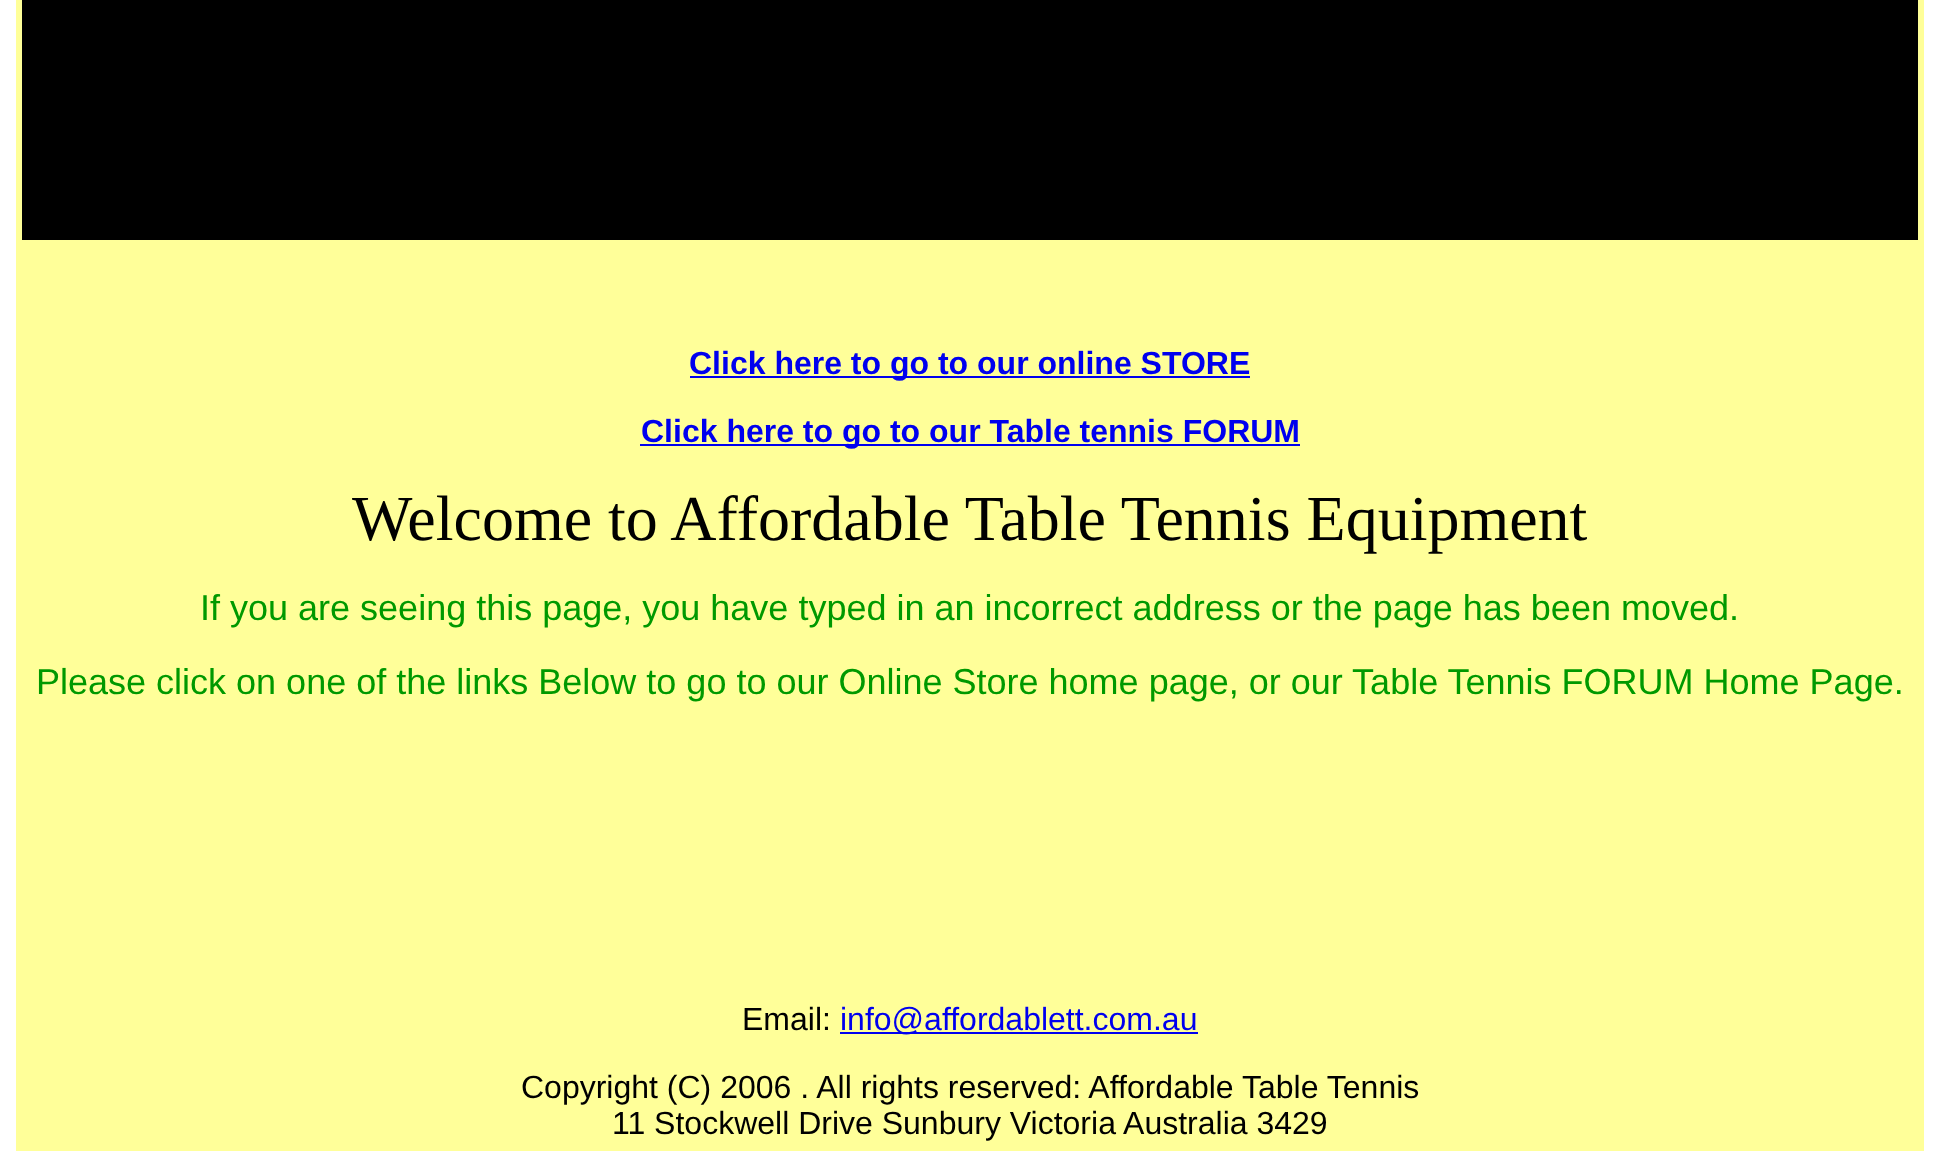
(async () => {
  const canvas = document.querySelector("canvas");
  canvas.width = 1939;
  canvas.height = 1151;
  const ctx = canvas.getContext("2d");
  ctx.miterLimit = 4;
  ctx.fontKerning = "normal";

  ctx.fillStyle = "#ffffff";
  ctx.fillRect(0, 0, 1939, 1151);
  for (const [x, y, w, h, color] of [
    [16, 0, 1908, 1151, "#ffff99"],
    [22, 0, 1896, 240, "#000000"],
    [690, 376, 560, 2, "#0000ee"],
    [640, 444, 660, 2, "#0000ee"],
    [840, 1032, 358, 2, "#0000ee"],
  ]) {
    ctx.fillStyle = color;
    ctx.fillRect(x, y, w, h);
  }
  ctx.font = "bold 32px Liberation Sans";
  ctx.fillText("Click here to go to our online STORE", 689, 374);
  ctx.fillText("Click here to go to our Table tennis FORUM", 641, 442);
  ctx.font = "64px Liberation Serif";
  ctx.fillStyle = "#000000";
  ctx.fillText("Welcome to Affordable Table Tennis Equipment", 352, 540);
  ctx.font = "36px Liberation Sans";
  ctx.fillStyle = "#009900";
  ctx.fillText("If you are seeing this page, you have typed in an incorrect address or the page has been moved.", 200, 620);
  ctx.fillText("Please click on one of the links Below to go to our Online Store home page, or our Table Tennis FORUM Home Page.", 36, 694);
  ctx.font = "32px Liberation Sans";
  ctx.fillStyle = "#000000";
  ctx.fillText("Email:", 742, 1030);
  ctx.fillStyle = "#0000ee";
  ctx.fillText("info@affordablett.com.au", 840, 1030);
  ctx.fillStyle = "#000000";
  ctx.fillText("Copyright (C) 2006 . All rights reserved: Affordable Table Tennis", 521, 1098);
  ctx.fillText("11 Stockwell Drive Sunbury Victoria Australia 3429", 612, 1134);
})();
